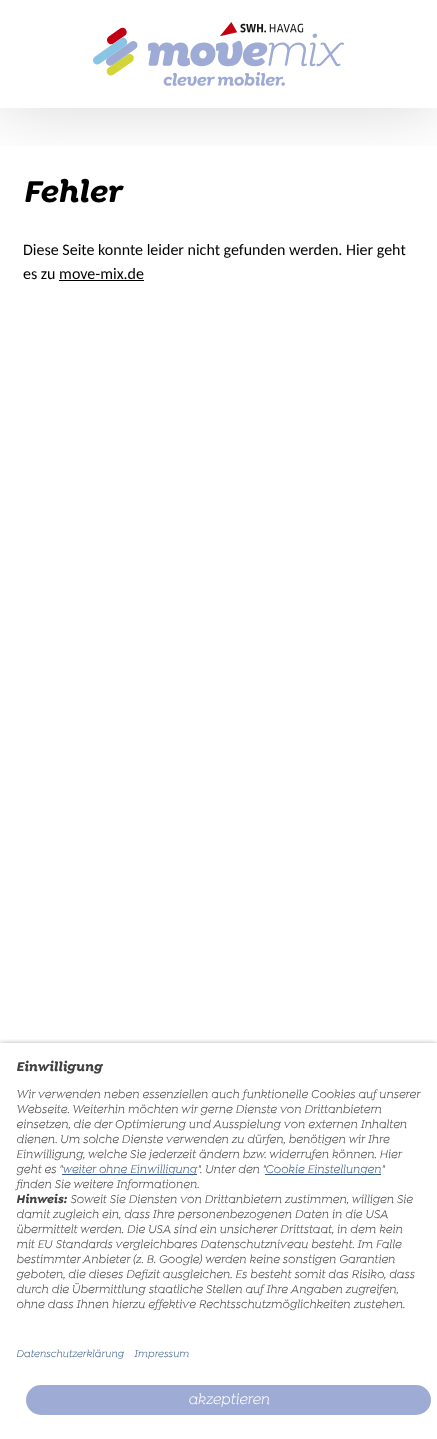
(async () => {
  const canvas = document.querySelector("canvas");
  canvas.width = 437;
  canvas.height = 1439;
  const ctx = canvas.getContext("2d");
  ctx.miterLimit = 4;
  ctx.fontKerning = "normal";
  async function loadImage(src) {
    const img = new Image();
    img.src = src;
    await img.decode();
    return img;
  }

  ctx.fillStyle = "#ffffff";
  ctx.fillRect(0, 0, 437, 1439);
  ctx.save();
  ctx.beginPath();
  ctx.rect(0, 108, 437, 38);
  ctx.clip();
  ctx.fillStyle = "rgba(0, 0, 0, 0.16)";
  ctx.filter = "blur(33px)";
  ctx.beginPath();
  ctx.rect(0, 0, 437, 108);
  ctx.fill();
  ctx.filter = "none";
  ctx.restore();
  ctx.drawImage(await loadImage("img/1.png"), 93, 22, 251, 64);
  ctx.fillStyle = "#000000";
  ctx.fillRect(59, 280, 85, 1);
  ctx.save();
  ctx.beginPath();
  ctx.rect(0, 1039, 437, 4);
  ctx.clip();
  ctx.fillStyle = "rgba(0, 0, 0, 0.8)";
  ctx.filter = "blur(3.5px)";
  ctx.beginPath();
  ctx.rect(0, 1046, 437, 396);
  ctx.fill();
  ctx.filter = "none";
  ctx.restore();
  ctx.fillStyle = "#385b87";
  ctx.fillRect(265, 1174, 116, 1);
  ctx.fillStyle = "#9eabd5";
  ctx.beginPath();
  ctx.roundRect(26, 1385, 405, 30, 15);
  ctx.fill();
  ctx.font = "bold 32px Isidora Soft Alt";
  ctx.fillStyle = "#000000";
  ctx.fillText("Fehler", 23, 202);
  ctx.font = "16px Carlito";
  ctx.fillText("Diese Seite konnte leider nicht gefunden werden. Hier geht", 23, 255);
  ctx.fillText("es zu move-mix.de", 23, 279);
  ctx.font = "bold 13.5px Isidora Soft Alt";
  ctx.fillStyle = "#414141";
  ctx.fillText("Einwilligung", 16, 1071);
  ctx.font = "12px Isidora Soft Alt";
  for (const [text, x, y] of [
    ["Wir verwenden neben essenziellen auch funktionelle Cookies auf unserer", 16, 1098],
    ["Webseite. Weiterhin möchten wir gerne Dienste von Drittanbietern", 16, 1113],
    ["einsetzen, die der Optimierung und Ausspielung von externen Inhalten", 16, 1128],
    ["dienen. Um solche Dienste verwenden zu dürfen, benötigen wir Ihre", 16, 1143],
    ["Einwilligung, welche Sie jederzeit ändern bzw. widerrufen können. Hier", 16, 1158],
    ["geht es \"", 16, 1173],
  ]) {
    ctx.fillText(text, x, y);
  }
  ctx.fillStyle = "#385b87";
  ctx.fillRect(62, 1174, 135, 1);
  ctx.fillText("weiter ohne Einwilligung", 62, 1173);
  ctx.fillStyle = "#414141";
  ctx.fillText("\". Unter den \"", 197, 1173);
  ctx.fillStyle = "#385b87";
  ctx.fillText("Cookie Einstellungen", 265, 1173);
  ctx.fillStyle = "#414141";
  ctx.fillText("\"", 381, 1173);
  ctx.fillText("finden Sie weitere Informationen.", 16, 1188);
  ctx.font = "bold 12px Isidora Soft Alt";
  ctx.fillText("Hinweis:", 16, 1203);
  ctx.font = "12px Isidora Soft Alt";
  for (const [text, x, y] of [
    ["Soweit Sie Diensten von Drittanbietern zustimmen, willigen Sie", 70, 1203],
    ["damit zugleich ein, dass Ihre personenbezogenen Daten in die USA", 16, 1218],
    ["übermittelt werden. Die USA sind ein unsicherer Drittstaat, in dem kein", 16, 1233],
    ["mit EU Standards vergleichbares Datenschutzniveau besteht. Im Falle", 16, 1248],
    ["bestimmter Anbieter (z. B. Google) werden keine sonstigen Garantien", 16, 1263],
    ["geboten, die dieses Defizit ausgleichen. Es besteht somit das Risiko, dass", 16, 1278],
    ["durch die Übermittlung staatliche Stellen auf Ihre Angaben zugreifen,", 16, 1293],
    ["ohne dass Ihnen hierzu effektive Rechtsschutzmöglichkeiten zustehen.", 16, 1308],
  ]) {
    ctx.fillText(text, x, y);
  }
  ctx.font = "10.5px Isidora Soft Alt";
  ctx.fillStyle = "#385b87";
  ctx.fillText("Datenschutzerklärung", 16, 1357);
  ctx.fillText("Impressum", 134, 1357);
  ctx.font = "15px Isidora Soft Alt";
  ctx.fillStyle = "#ffffff";
  ctx.fillText("akzeptieren", 188, 1404);
})();
